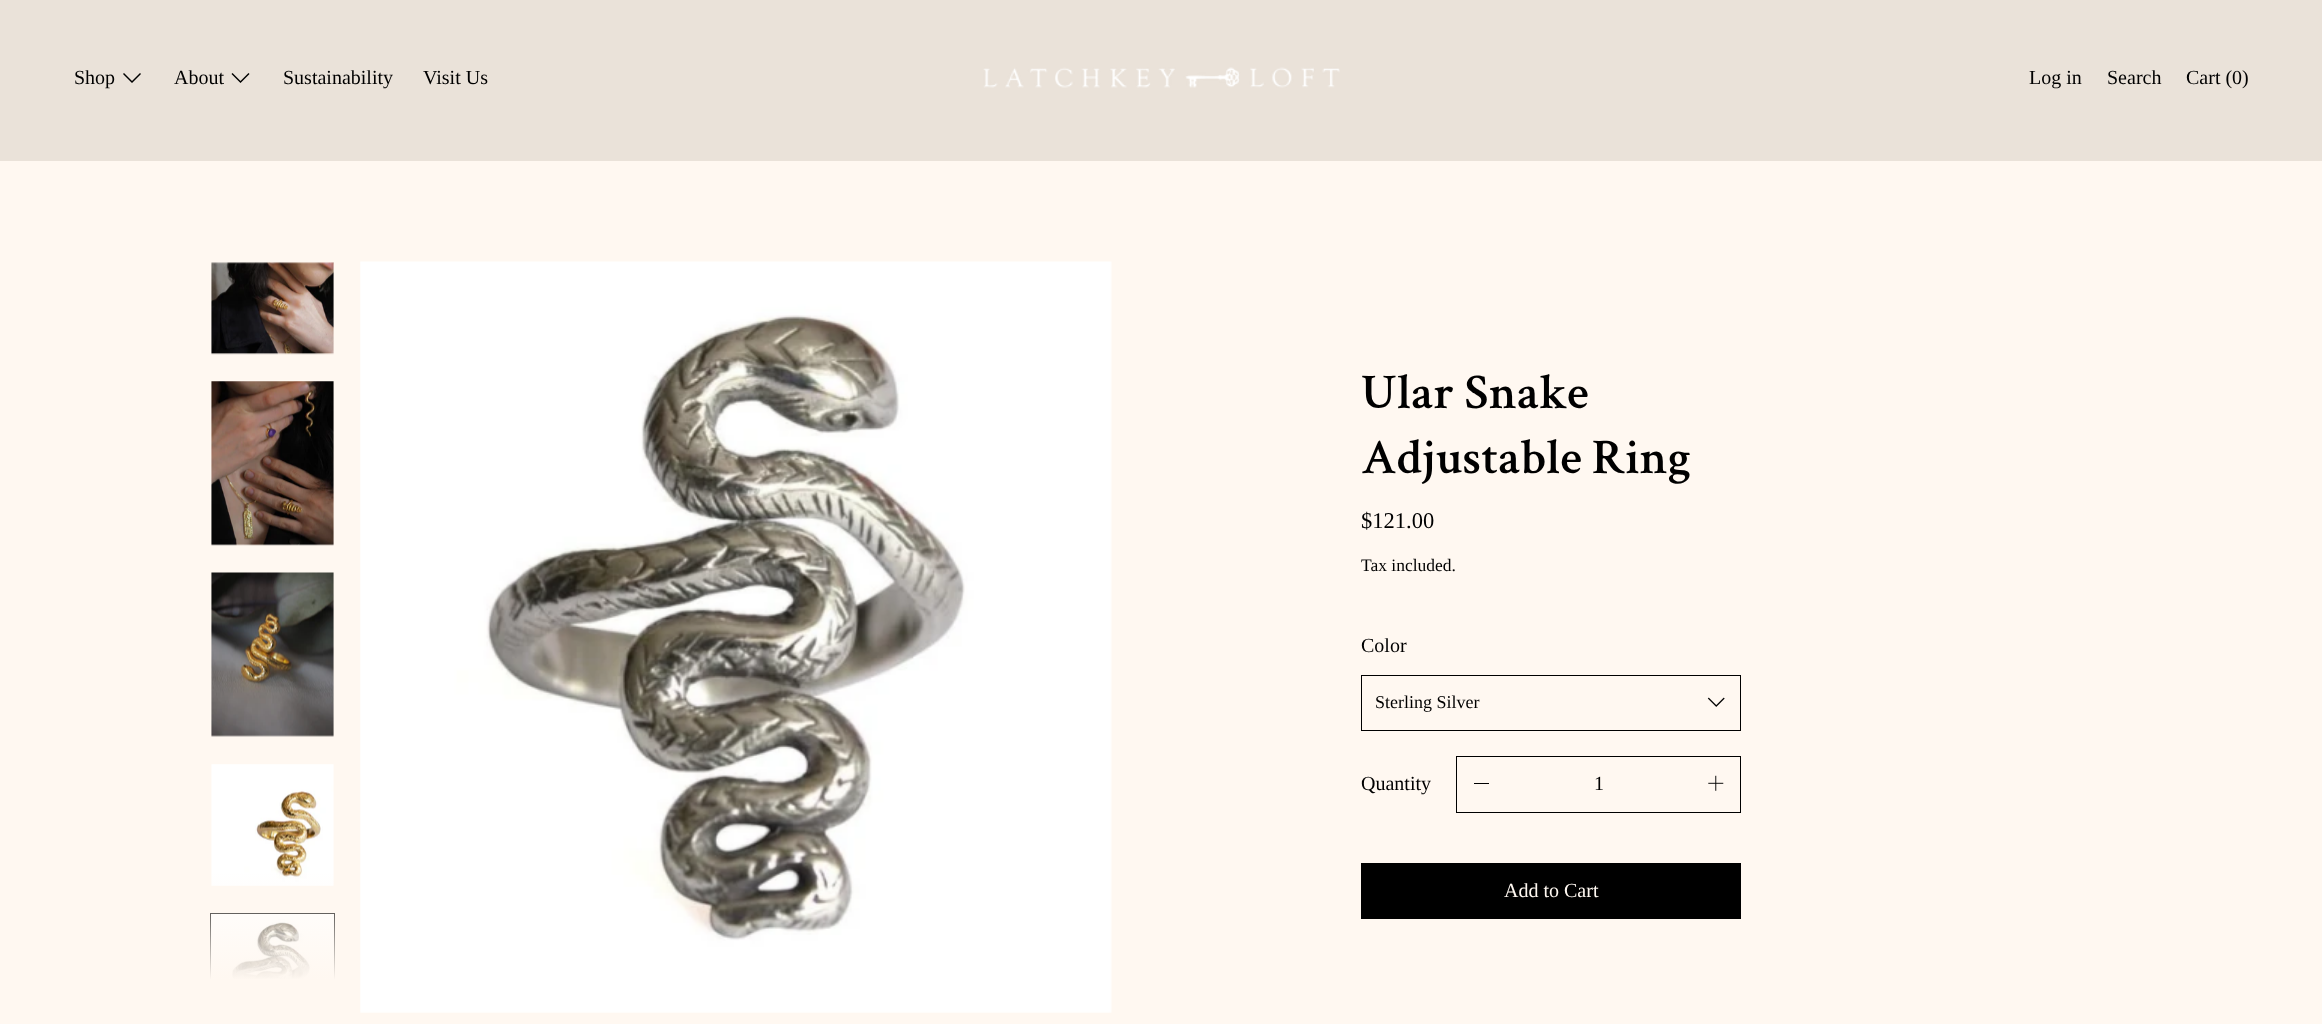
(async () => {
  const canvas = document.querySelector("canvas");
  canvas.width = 2322;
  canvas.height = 1024;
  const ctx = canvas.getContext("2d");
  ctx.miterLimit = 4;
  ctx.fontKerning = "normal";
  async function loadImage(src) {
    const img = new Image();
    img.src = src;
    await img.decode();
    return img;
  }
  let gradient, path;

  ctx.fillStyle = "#eae2d9";
  ctx.fillRect(0, 0, 2322, 1024);
  ctx.fillStyle = "#000000";
  path = new Path2D("M132 81L140 73L141 74L132 83L123 74L124 73Z");
  ctx.fill(path, "evenodd");
  path = new Path2D("M240.5 81L248.5 73L249.5 74L240.5 83L231.5 74L232.5 73Z");
  ctx.fill(path, "evenodd");
  ctx.drawImage(await loadImage("img/1.png"), 983, 67, 357, 21);
  ctx.fillStyle = "#fff8f1";
  ctx.fillRect(0, 161, 2322, 863);
  ctx.drawImage(await loadImage("img/2.png"), 211, 262, 123, 93);
  ctx.drawImage(await loadImage("img/3.png"), 211, 381, 123, 165);
  ctx.drawImage(await loadImage("img/4.png"), 211, 572, 123, 165);
  ctx.drawImage(await loadImage("img/5.png"), 211, 764, 123, 122);
  ctx.save();
  ctx.beginPath();
  ctx.rect(210, 261, 150, 752);
  ctx.clip();
  ctx.strokeStyle = "#000000";
  ctx.strokeRect(210.5, 913.5, 124, 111);
  ctx.restore();
  ctx.drawImage(await loadImage("img/6.png"), 211, 914, 123, 65);
  gradient = ctx.createLinearGradient(273, 871, 273, 1016);
  gradient.addColorStop(0, "rgba(255, 248, 241, 0)");
  gradient.addColorStop(0.15, "rgba(255, 248, 241, 0.2)");
  gradient.addColorStop(0.75, "#fff8f1");
  ctx.fillStyle = gradient;
  ctx.fillRect(210, 873, 125, 140);
  ctx.drawImage(await loadImage("img/7.png"), 360, 261, 752, 752);
  ctx.drawImage(await loadImage("img/8.png"), 1707, 697, 18, 10);
  ctx.strokeStyle = "#000000";
  ctx.strokeRect(1361.5, 675.5, 379, 55);
  ctx.strokeRect(1456.5, 756.5, 284, 56);
  ctx.fillStyle = "#000000";
  ctx.fillRect(1474, 783, 15, 1);
  ctx.drawImage(await loadImage("img/9.png"), 1708, 775, 16, 16);
  ctx.fillRect(1361, 863, 380, 56);
  ctx.font = "20px Liberation Serif";
  for (const [text, x, y] of [
    ["Shop", 74, 84],
    ["About", 174, 84],
    ["Sustainability", 283, 84],
    ["Visit Us", 423, 84],
    ["Log in", 2029, 84],
    ["Search", 2107, 84],
    ["Cart (0)", 2186, 84],
  ]) {
    ctx.fillText(text, x, y);
  }
  ctx.font = "600 50px Crimson Text";
  ctx.fillText("Ular Snake", 1361, 408);
  ctx.fillText("Adjustable Ring", 1361, 473);
  ctx.font = "22.5px Liberation Serif";
  ctx.fillText("$121.00", 1361, 528);
  ctx.font = "17.5px Liberation Serif";
  ctx.fillText("Tax included.", 1361, 571);
  ctx.font = "20px Liberation Serif";
  ctx.fillText("Color", 1361, 652);
  ctx.font = "18px Liberation Serif";
  ctx.fillText("Sterling Silver", 1375, 708);
  ctx.font = "20px Liberation Serif";
  ctx.fillText("Quantity", 1361, 790);
  ctx.fillText("1", 1594, 790);
  ctx.fillStyle = "#fff8f1";
  ctx.fillText("Add to Cart", 1504, 897);
})();
